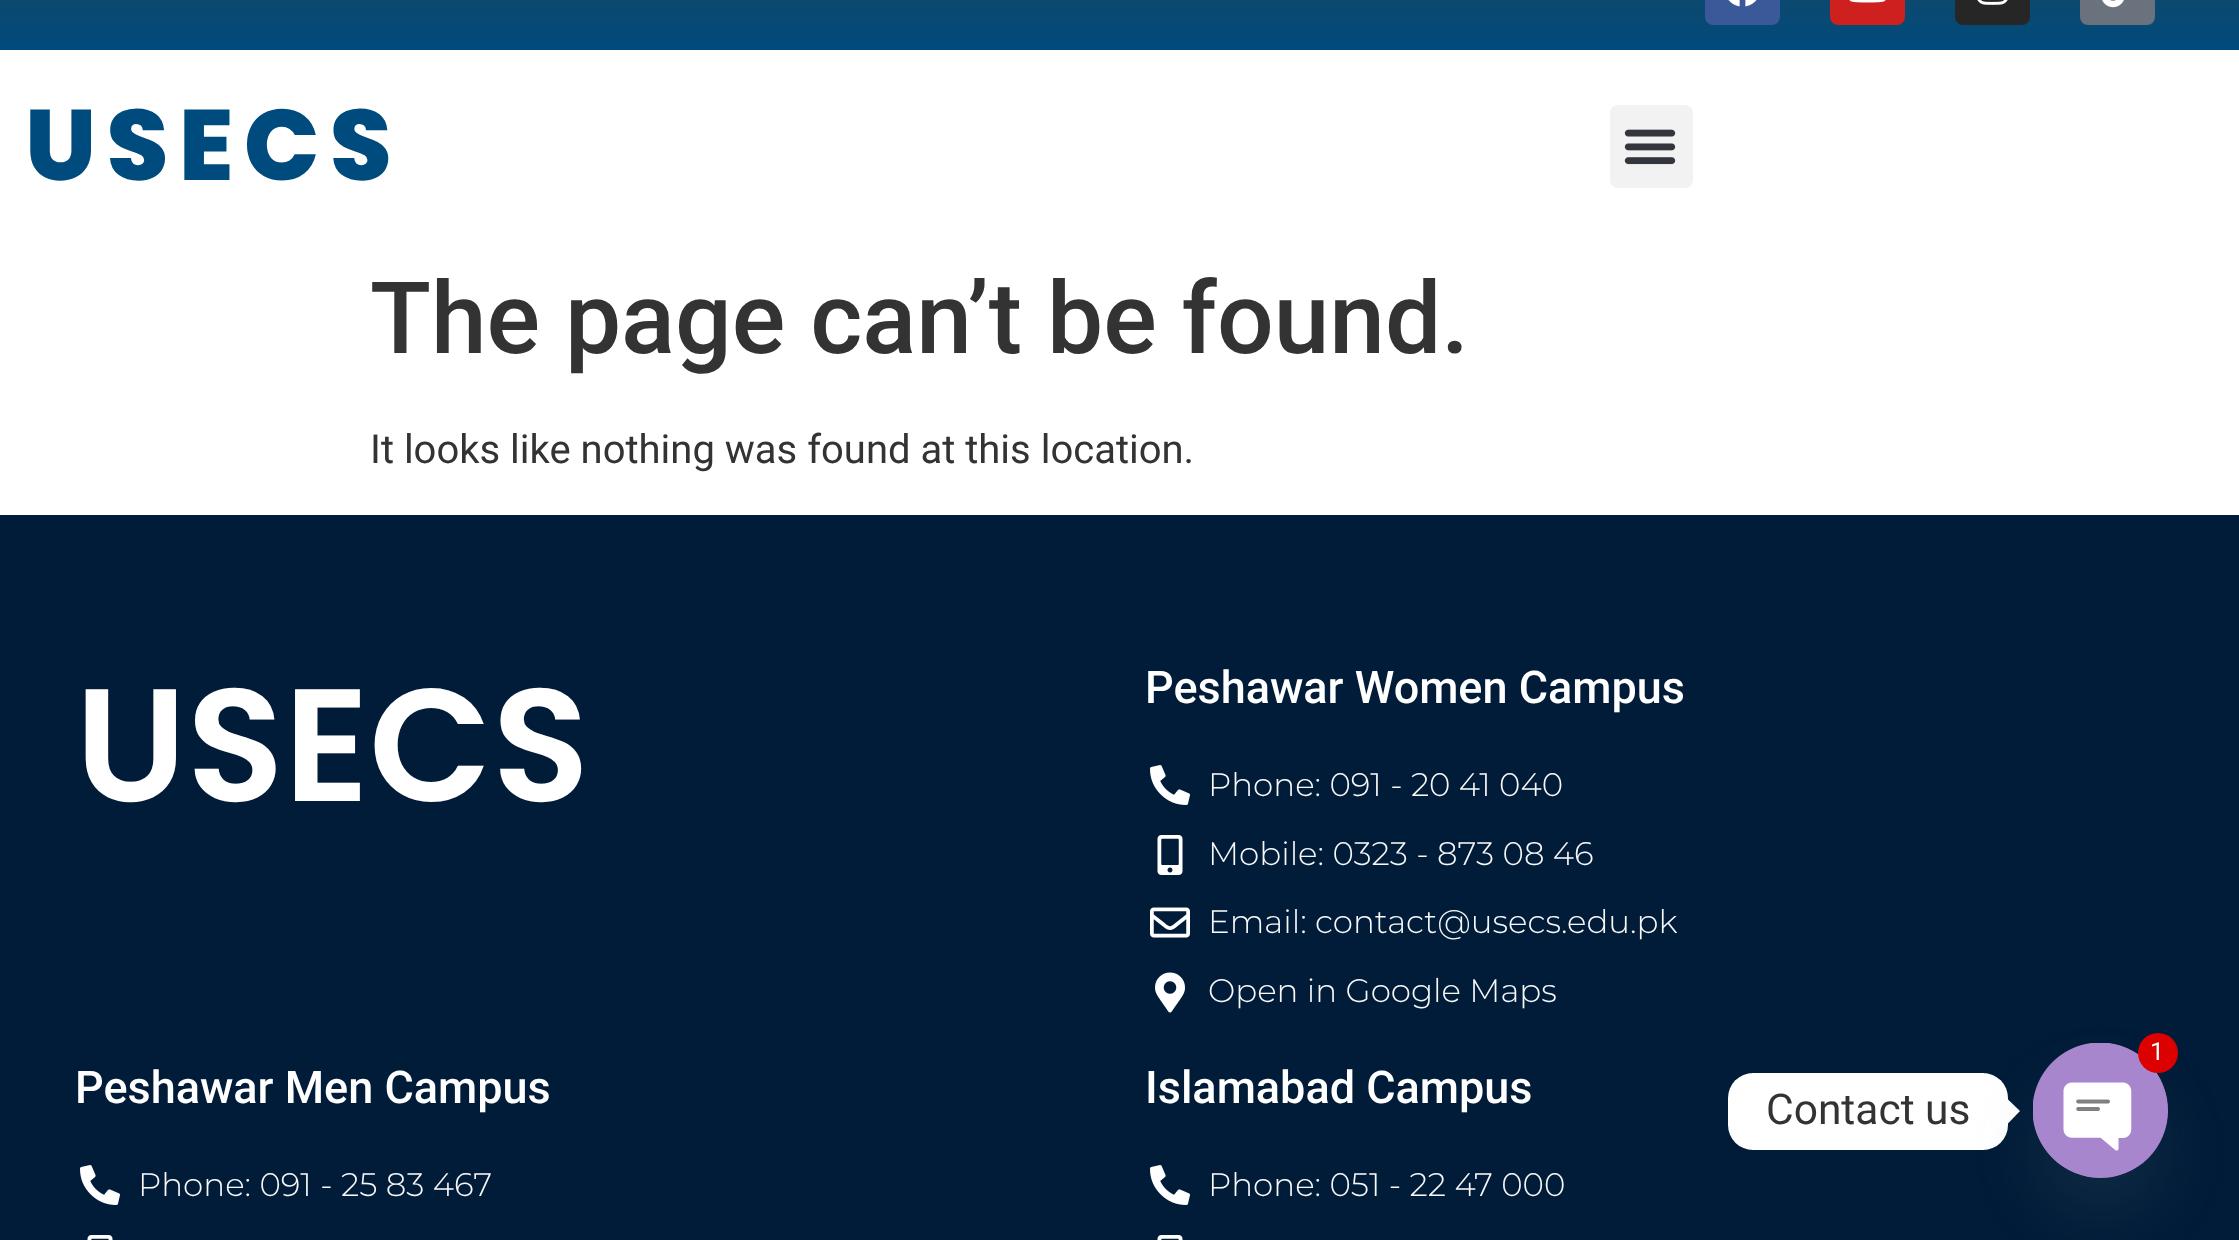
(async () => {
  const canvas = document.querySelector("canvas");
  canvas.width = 2239;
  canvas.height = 1240;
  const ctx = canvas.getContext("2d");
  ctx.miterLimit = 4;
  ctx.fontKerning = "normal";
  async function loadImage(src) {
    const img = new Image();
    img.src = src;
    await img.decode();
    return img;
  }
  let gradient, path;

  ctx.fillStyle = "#ffffff";
  ctx.fillRect(0, 0, 2239, 1240);
  gradient = ctx.createLinearGradient(1120, -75, 1120, 50);
  gradient.addColorStop(0, "#1d4559");
  gradient.addColorStop(1, "#004b7d");
  ctx.fillStyle = gradient;
  ctx.fillRect(0, 0, 2239, 50);
  ctx.fillStyle = "#3b5998";
  ctx.beginPath();
  ctx.roundRect(1705, -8, 75, 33, 8);
  ctx.fill();
  ctx.drawImage(await loadImage("img/1.png"), 1728, 0, 29, 7);
  ctx.fillStyle = "#cd201f";
  ctx.beginPath();
  ctx.roundRect(1830, -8, 75, 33, 8);
  ctx.fill();
  ctx.drawImage(await loadImage("img/2.png"), 1849, 0, 37, 3);
  ctx.fillStyle = "#262626";
  ctx.beginPath();
  ctx.roundRect(1955, -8, 75, 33, 8);
  ctx.fill();
  ctx.drawImage(await loadImage("img/3.png"), 1977, 0, 31, 5);
  ctx.fillStyle = "#69727d";
  ctx.beginPath();
  ctx.roundRect(2080, -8, 75, 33, 8);
  ctx.fill();
  ctx.drawImage(await loadImage("img/4.png"), 2102, 0, 22, 8);
  ctx.fillStyle = "#f2f2f2";
  ctx.beginPath();
  ctx.roundRect(1610, 105, 83, 83, 8);
  ctx.fill();
  ctx.drawImage(await loadImage("img/5.png"), 1624, 129, 52, 36);
  ctx.fillStyle = "#001c38";
  ctx.fillRect(0, 515, 2239, 725);
  ctx.drawImage(await loadImage("img/6.png"), 1150, 765, 40, 40);
  ctx.drawImage(await loadImage("img/7.png"), 1157, 835, 26, 40);
  ctx.drawImage(await loadImage("img/8.png"), 1150, 907, 40, 31);
  ctx.drawImage(await loadImage("img/9.png"), 1155, 972, 30, 41);
  ctx.drawImage(await loadImage("img/6.png"), 80, 1165, 40, 40);
  ctx.drawImage(await loadImage("img/10.png"), 87, 1235, 26, 5);
  ctx.drawImage(await loadImage("img/6.png"), 1150, 1165, 40, 40);
  ctx.drawImage(await loadImage("img/10.png"), 1157, 1235, 26, 5);
  ctx.fillStyle = "#ffffff";
  ctx.beginPath();
  ctx.roundRect(1728, 1073, 280, 77, 25);
  ctx.fill();
  path = new Path2D("M2007.5 1124V1099L2020 1111Z");
  ctx.fill(path);
  ctx.fillStyle = "rgba(73, 104, 126, 0.16)";
  ctx.filter = "blur(30px)";
  ctx.beginPath();
  ctx.roundRect(2033, 1083, 135, 135, 67.5);
  ctx.fill();
  ctx.filter = "none";
  ctx.fillStyle = "#a886cd";
  ctx.beginPath();
  ctx.arc(2100.5, 1110.5, 67.5, 0, Math.PI * 2);
  ctx.fill();
  ctx.drawImage(await loadImage("img/11.png"), 2033, 1043, 135, 134);
  ctx.fillStyle = "#dd0000";
  ctx.beginPath();
  ctx.arc(2158, 1053, 20, 0, Math.PI * 2);
  ctx.fill();
  ctx.letterSpacing = "10.25px";
  ctx.font = "800 100px Poppins";
  ctx.fillStyle = "#004b7d";
  ctx.fillText("USECS", 25, 180);
  ctx.letterSpacing = "0px";
  ctx.font = "500 100px Roboto";
  ctx.fillStyle = "#333333";
  ctx.fillText("The page can’t be found.", 370, 353);
  ctx.font = "40px Roboto";
  ctx.fillText("It looks like nothing was found at this location.", 370, 463);
  ctx.font = "600 160px Poppins";
  ctx.fillStyle = "#ffffff";
  ctx.fillText("USECS", 75, 801);
  ctx.font = "500 45px Roboto";
  ctx.fillText("Peshawar Women Campus", 1145, 703);
  ctx.font = "300 32.5px Montserrat";
  ctx.fillStyle = "#f8f8f8";
  for (const [text, x, y] of [
    ["Phone: 091 - 20 41 040", 1208, 796],
    ["Mobile: 0323 - 873 08 46", 1208, 865],
    ["Email: contact@usecs.edu.pk", 1208, 933],
    ["Open in Google Maps", 1208, 1002],
  ]) {
    ctx.fillText(text, x, y);
  }
  ctx.font = "500 45px Roboto";
  ctx.fillStyle = "#ffffff";
  ctx.fillText("Peshawar Men Campus", 75, 1103);
  ctx.font = "300 32.5px Montserrat";
  ctx.fillStyle = "#f8f8f8";
  ctx.fillText("Phone: 091 - 25 83 467", 138, 1196);
  ctx.font = "500 45px Roboto";
  ctx.fillStyle = "#ffffff";
  ctx.fillText("Islamabad Campus", 1145, 1103);
  ctx.font = "300 32.5px Montserrat";
  ctx.fillStyle = "#f8f8f8";
  ctx.fillText("Phone: 051 - 22 47 000", 1208, 1196);
  ctx.font = "25px Roboto";
  ctx.fillStyle = "#ffffff";
  ctx.fillText("1", 2150, 1060);
  ctx.font = "42.5px Roboto";
  ctx.fillStyle = "#333333";
  ctx.fillText("Contact us", 1766, 1124);
})();
